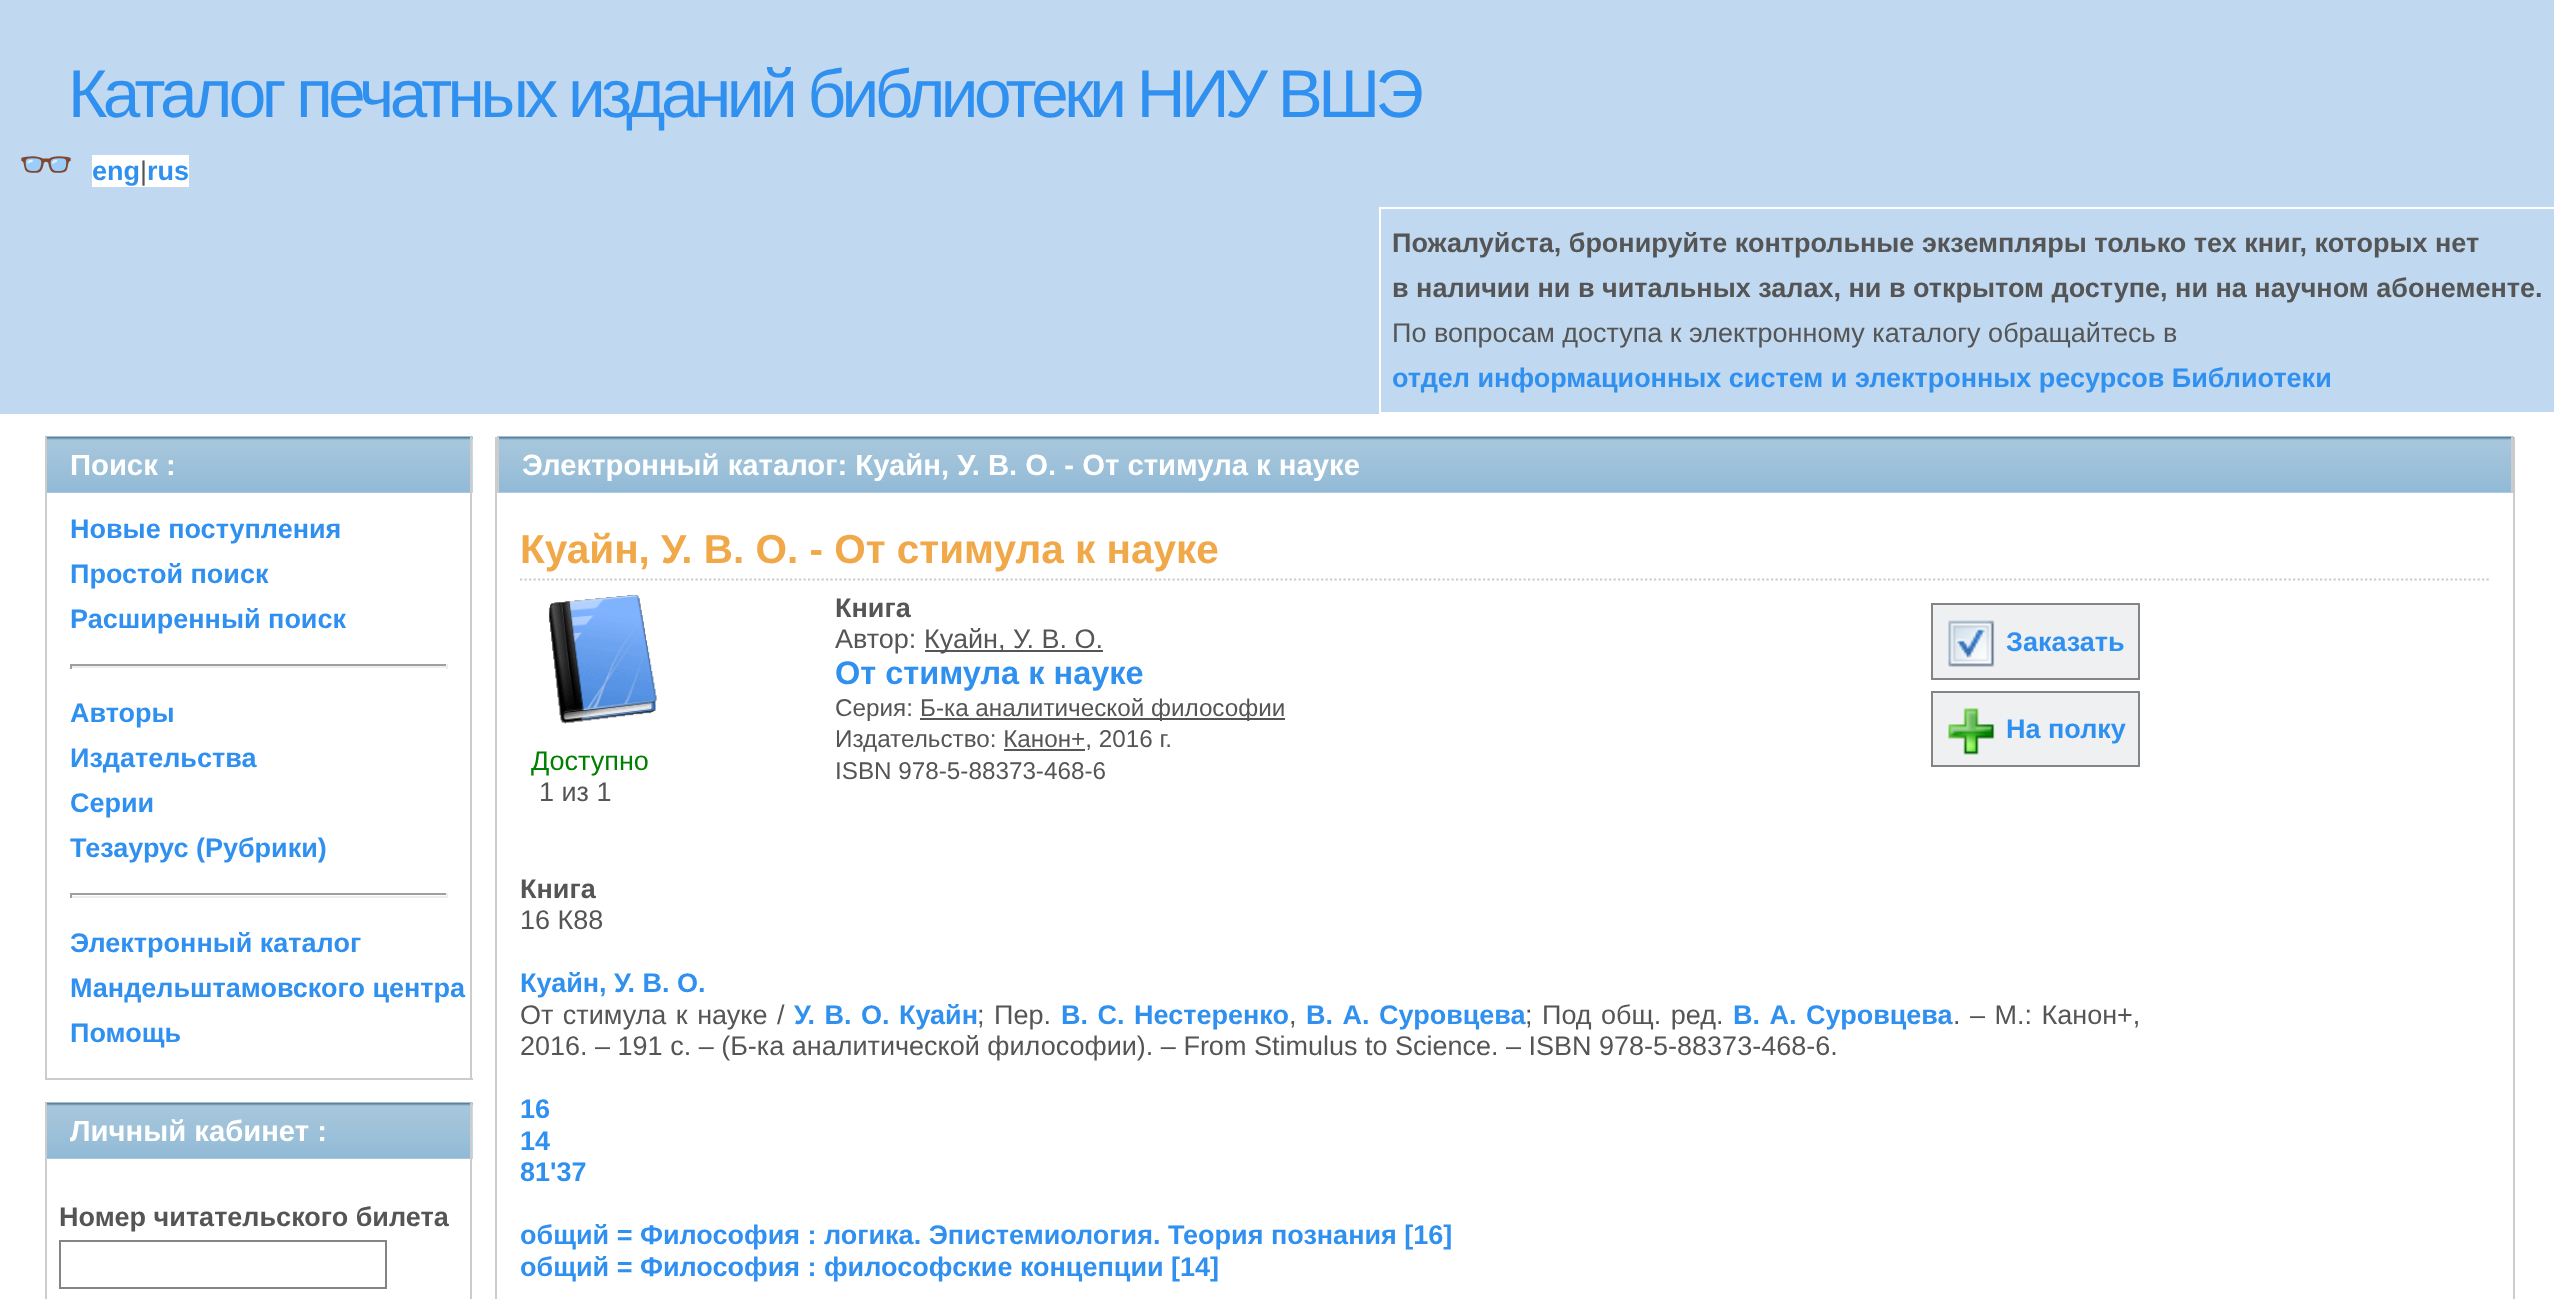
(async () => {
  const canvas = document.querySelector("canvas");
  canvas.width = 2554;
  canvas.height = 1299;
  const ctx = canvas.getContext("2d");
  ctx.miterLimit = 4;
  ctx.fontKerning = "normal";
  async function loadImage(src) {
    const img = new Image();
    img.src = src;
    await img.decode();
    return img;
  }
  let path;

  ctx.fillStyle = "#ffffff";
  ctx.fillRect(0, 0, 2554, 1299);
  ctx.fillStyle = "#c0d8f0";
  ctx.fillRect(0, 0, 2554, 414);
  ctx.fillStyle = "#ffffff";
  ctx.fillRect(92, 155, 97, 32);
  ctx.strokeStyle = "#ffffff";
  ctx.lineWidth = 2;
  ctx.strokeRect(1380, 208, 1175, 205);
  ctx.fillStyle = "#eef0f1";
  ctx.fillRect(47, 437, 426, 56);
  ctx.drawImage(await loadImage("img/1.png"), 45, 436, 428, 57);
  for (const [x, y, w, h, color] of [
    [470, 437, 2, 643, "#cccccc"],
    [45, 437, 2, 56, "#cccccc"],
    [45, 1078, 428, 2, "#cccccc"],
    [45, 493, 2, 587, "#cccccc"],
    [70, 664, 378, 2, "#9f9f9f"],
    [446, 664, 2, 5, "#eeeeee"],
    [70, 666, 378, 2, "#eeeeee"],
    [70, 664, 2, 5, "#9f9f9f"],
    [70, 893, 378, 2, "#9f9f9f"],
    [446, 893, 2, 5, "#eeeeee"],
    [70, 896, 378, 2, "#eeeeee"],
    [70, 893, 2, 5, "#9f9f9f"],
    [47, 1103, 426, 56, "#eef0f1"],
  ]) {
    ctx.fillStyle = color;
    ctx.fillRect(x, y, w, h);
  }
  ctx.drawImage(await loadImage("img/1.png"), 45, 1102, 428, 57);
  ctx.fillStyle = "#cccccc";
  ctx.fillRect(470, 1103, 2, 196);
  ctx.fillRect(45, 1103, 2, 196);
  ctx.strokeStyle = "#848388";
  ctx.strokeRect(60, 1241, 326, 47);
  ctx.fillRect(2513, 437, 2, 862);
  ctx.fillRect(495, 437, 2, 862);
  ctx.drawImage(await loadImage("img/2.png"), 497, 436, 2017, 57);
  ctx.fillRect(2511, 437, 2, 56);
  ctx.fillRect(497, 437, 2, 56);
  path = new Path2D("M520 579.5H2491");
  ctx.strokeStyle = "#cccccc";
  ctx.lineWidth = 2.2;
  ctx.setLineDash([2.25, 2.25]);
  ctx.stroke(path);
  for (const [x, y, w, h, color] of [
    [925, 650, 178, 2, "#555555"],
    [920, 718, 365, 2, "#555555"],
    [1004, 749, 81, 2, "#555555"],
  ]) {
    ctx.fillStyle = color;
    ctx.fillRect(x, y, w, h);
  }
  ctx.fillStyle = "#eef0f1";
  ctx.beginPath();
  ctx.rect(1932, 604, 207, 75);
  ctx.fill();
  ctx.strokeStyle = "#848388";
  ctx.lineWidth = 2;
  ctx.setLineDash([]);
  ctx.stroke();
  ctx.drawImage(await loadImage("img/3.png"), 1948, 620, 47, 47);
  ctx.beginPath();
  ctx.rect(1932, 692, 207, 74);
  ctx.fill();
  ctx.stroke();
  ctx.drawImage(await loadImage("img/4.png"), 1948, 708, 47, 47);
  ctx.drawImage(await loadImage("img/5.png"), 548, 594, 109, 130);
  ctx.letterSpacing = "-4.5px";
  ctx.font = "67.5px Liberation Sans";
  ctx.fillStyle = "#3090f0";
  ctx.fillText("Каталог печатных изданий библиотеки НИУ ВШЭ", 68, 117);
  ctx.letterSpacing = "0px";
  ctx.font = "bold 45px Noto Color Emoji";
  ctx.fillText("👓", 18, 180);
  ctx.font = "bold 27px Liberation Sans";
  ctx.fillText("eng", 92, 180);
  ctx.font = "27px Liberation Sans";
  ctx.fillStyle = "#555555";
  ctx.fillText("|", 140, 180);
  ctx.font = "bold 27px Liberation Sans";
  ctx.fillStyle = "#3090f0";
  ctx.fillText("rus", 147, 180);
  ctx.fillStyle = "#555555";
  ctx.fillText("Пожалуйста, бронируйте контрольные экземпляры только тех книг, которых нет", 1392, 252);
  ctx.fillText("в наличии ни в читальных залах, ни в открытом доступе, ни на научном абонементе.", 1392, 297);
  ctx.font = "27px Liberation Sans";
  ctx.fillText("По вопросам доступа к электронному каталогу обращайтесь в", 1392, 342);
  ctx.font = "bold 27px Liberation Sans";
  ctx.fillStyle = "#3090f0";
  ctx.fillText("отдел информационных систем и электронных ресурсов Библиотеки", 1392, 387);
  ctx.font = "bold 29.25px Liberation Sans";
  ctx.fillStyle = "#ffffff";
  ctx.fillText("Поиск :", 70, 475);
  ctx.font = "bold 27px Liberation Sans";
  ctx.fillStyle = "#3090f0";
  for (const [text, x, y] of [
    ["Новые поступления", 70, 538],
    ["Простой поиск", 70, 583],
    ["Расширенный поиск", 70, 628],
    ["Авторы", 70, 722],
    ["Издательства", 70, 767],
    ["Серии", 70, 812],
    ["Тезаурус (Рубрики)", 70, 857],
    ["Электронный каталог", 70, 952],
    ["Мандельштамовского центра", 70, 997],
    ["Помощь", 70, 1042],
  ]) {
    ctx.fillText(text, x, y);
  }
  ctx.font = "bold 29.25px Liberation Sans";
  ctx.fillStyle = "#ffffff";
  ctx.fillText("Личный кабинет :", 70, 1141);
  ctx.font = "bold 27px Liberation Sans";
  ctx.fillStyle = "#555555";
  ctx.fillText("Номер читательского билета", 59, 1226);
  ctx.font = "bold 29.25px Liberation Sans";
  ctx.fillStyle = "#ffffff";
  ctx.fillText("Электронный каталог: Куайн, У. В. О. - От стимула к науке", 522, 475);
  ctx.font = "bold 40.5px Liberation Sans";
  ctx.fillStyle = "#f0a848";
  ctx.fillText("Куайн, У. В. О. - От стимула к науке", 520, 563);
  ctx.font = "bold 27px Liberation Sans";
  ctx.fillStyle = "#555555";
  ctx.fillText("Книга", 835, 617);
  ctx.font = "27px Liberation Sans";
  ctx.fillText("Автор:", 835, 648);
  ctx.fillText("Куайн, У. В. О.", 924, 648);
  ctx.font = "bold 32.5px Liberation Sans";
  ctx.fillStyle = "#3090f0";
  ctx.fillText("От стимула к науке", 835, 684);
  ctx.font = "24.25px Liberation Sans";
  ctx.fillStyle = "#555555";
  for (const [text, x, y] of [
    ["Серия:", 835, 716],
    ["Б-ка аналитической философии", 920, 716],
    ["Издательство: Канон+, 2016 г.", 835, 747],
    ["ISBN 978-5-88373-468-6", 835, 779],
  ]) {
    ctx.fillText(text, x, y);
  }
  ctx.font = "bold 27px Liberation Sans";
  ctx.fillStyle = "#3090f0";
  ctx.fillText("Заказать", 2006, 651);
  ctx.fillText("На полку", 2006, 738);
  ctx.font = "27px Liberation Sans";
  ctx.fillStyle = "#008000";
  ctx.fillText("Доступно", 531, 770);
  ctx.fillStyle = "#555555";
  ctx.fillText("1 из 1", 539, 801);
  ctx.font = "bold 27px Liberation Sans";
  ctx.fillText("Книга", 520, 898);
  ctx.font = "27px Liberation Sans";
  ctx.fillText("16 К88", 520, 929);
  ctx.font = "bold 27px Liberation Sans";
  ctx.fillStyle = "#3090f0";
  ctx.fillText("Куайн, У. В. О.", 520, 992);
  ctx.wordSpacing = "2px";
  ctx.font = "27px Liberation Sans";
  ctx.fillStyle = "#555555";
  ctx.fillText("От стимула к науке /", 520, 1024);
  ctx.font = "bold 27px Liberation Sans";
  ctx.fillStyle = "#3090f0";
  ctx.fillText("У. В. О. Куайн", 794, 1024);
  ctx.font = "27px Liberation Sans";
  ctx.fillStyle = "#555555";
  ctx.fillText("; Пер.", 977, 1024);
  ctx.font = "bold 27px Liberation Sans";
  ctx.fillStyle = "#3090f0";
  ctx.fillText("В. С. Нестеренко", 1061, 1024);
  ctx.wordSpacing = "0px";
  ctx.font = "27px Liberation Sans";
  ctx.fillStyle = "#555555";
  ctx.fillText(",", 1289, 1024);
  ctx.wordSpacing = "2px";
  ctx.font = "bold 27px Liberation Sans";
  ctx.fillStyle = "#3090f0";
  ctx.fillText("В. А. Суровцева", 1306, 1024);
  ctx.font = "27px Liberation Sans";
  ctx.fillStyle = "#555555";
  ctx.fillText("; Под общ. ред.", 1525, 1024);
  ctx.font = "bold 27px Liberation Sans";
  ctx.fillStyle = "#3090f0";
  ctx.fillText("В. А. Суровцева", 1733, 1024);
  ctx.font = "27px Liberation Sans";
  ctx.fillStyle = "#555555";
  ctx.fillText(". – М.: Канон+,", 1953, 1024);
  ctx.wordSpacing = "0px";
  ctx.fillText("2016. – 191 с. – (Б-ка аналитической философии). – From Stimulus to Science. – ISBN 978-5-88373-468-6.", 520, 1055);
  ctx.font = "bold 27px Liberation Sans";
  ctx.fillStyle = "#3090f0";
  for (const [text, x, y] of [
    ["16", 520, 1118],
    ["14", 520, 1150],
    ["81'37", 520, 1181],
    ["общий = Философия : логика. Эпистемиология. Теория познания [16]", 520, 1244],
    ["общий = Философия : философские концепции [14]", 520, 1276],
  ]) {
    ctx.fillText(text, x, y);
  }
})();
